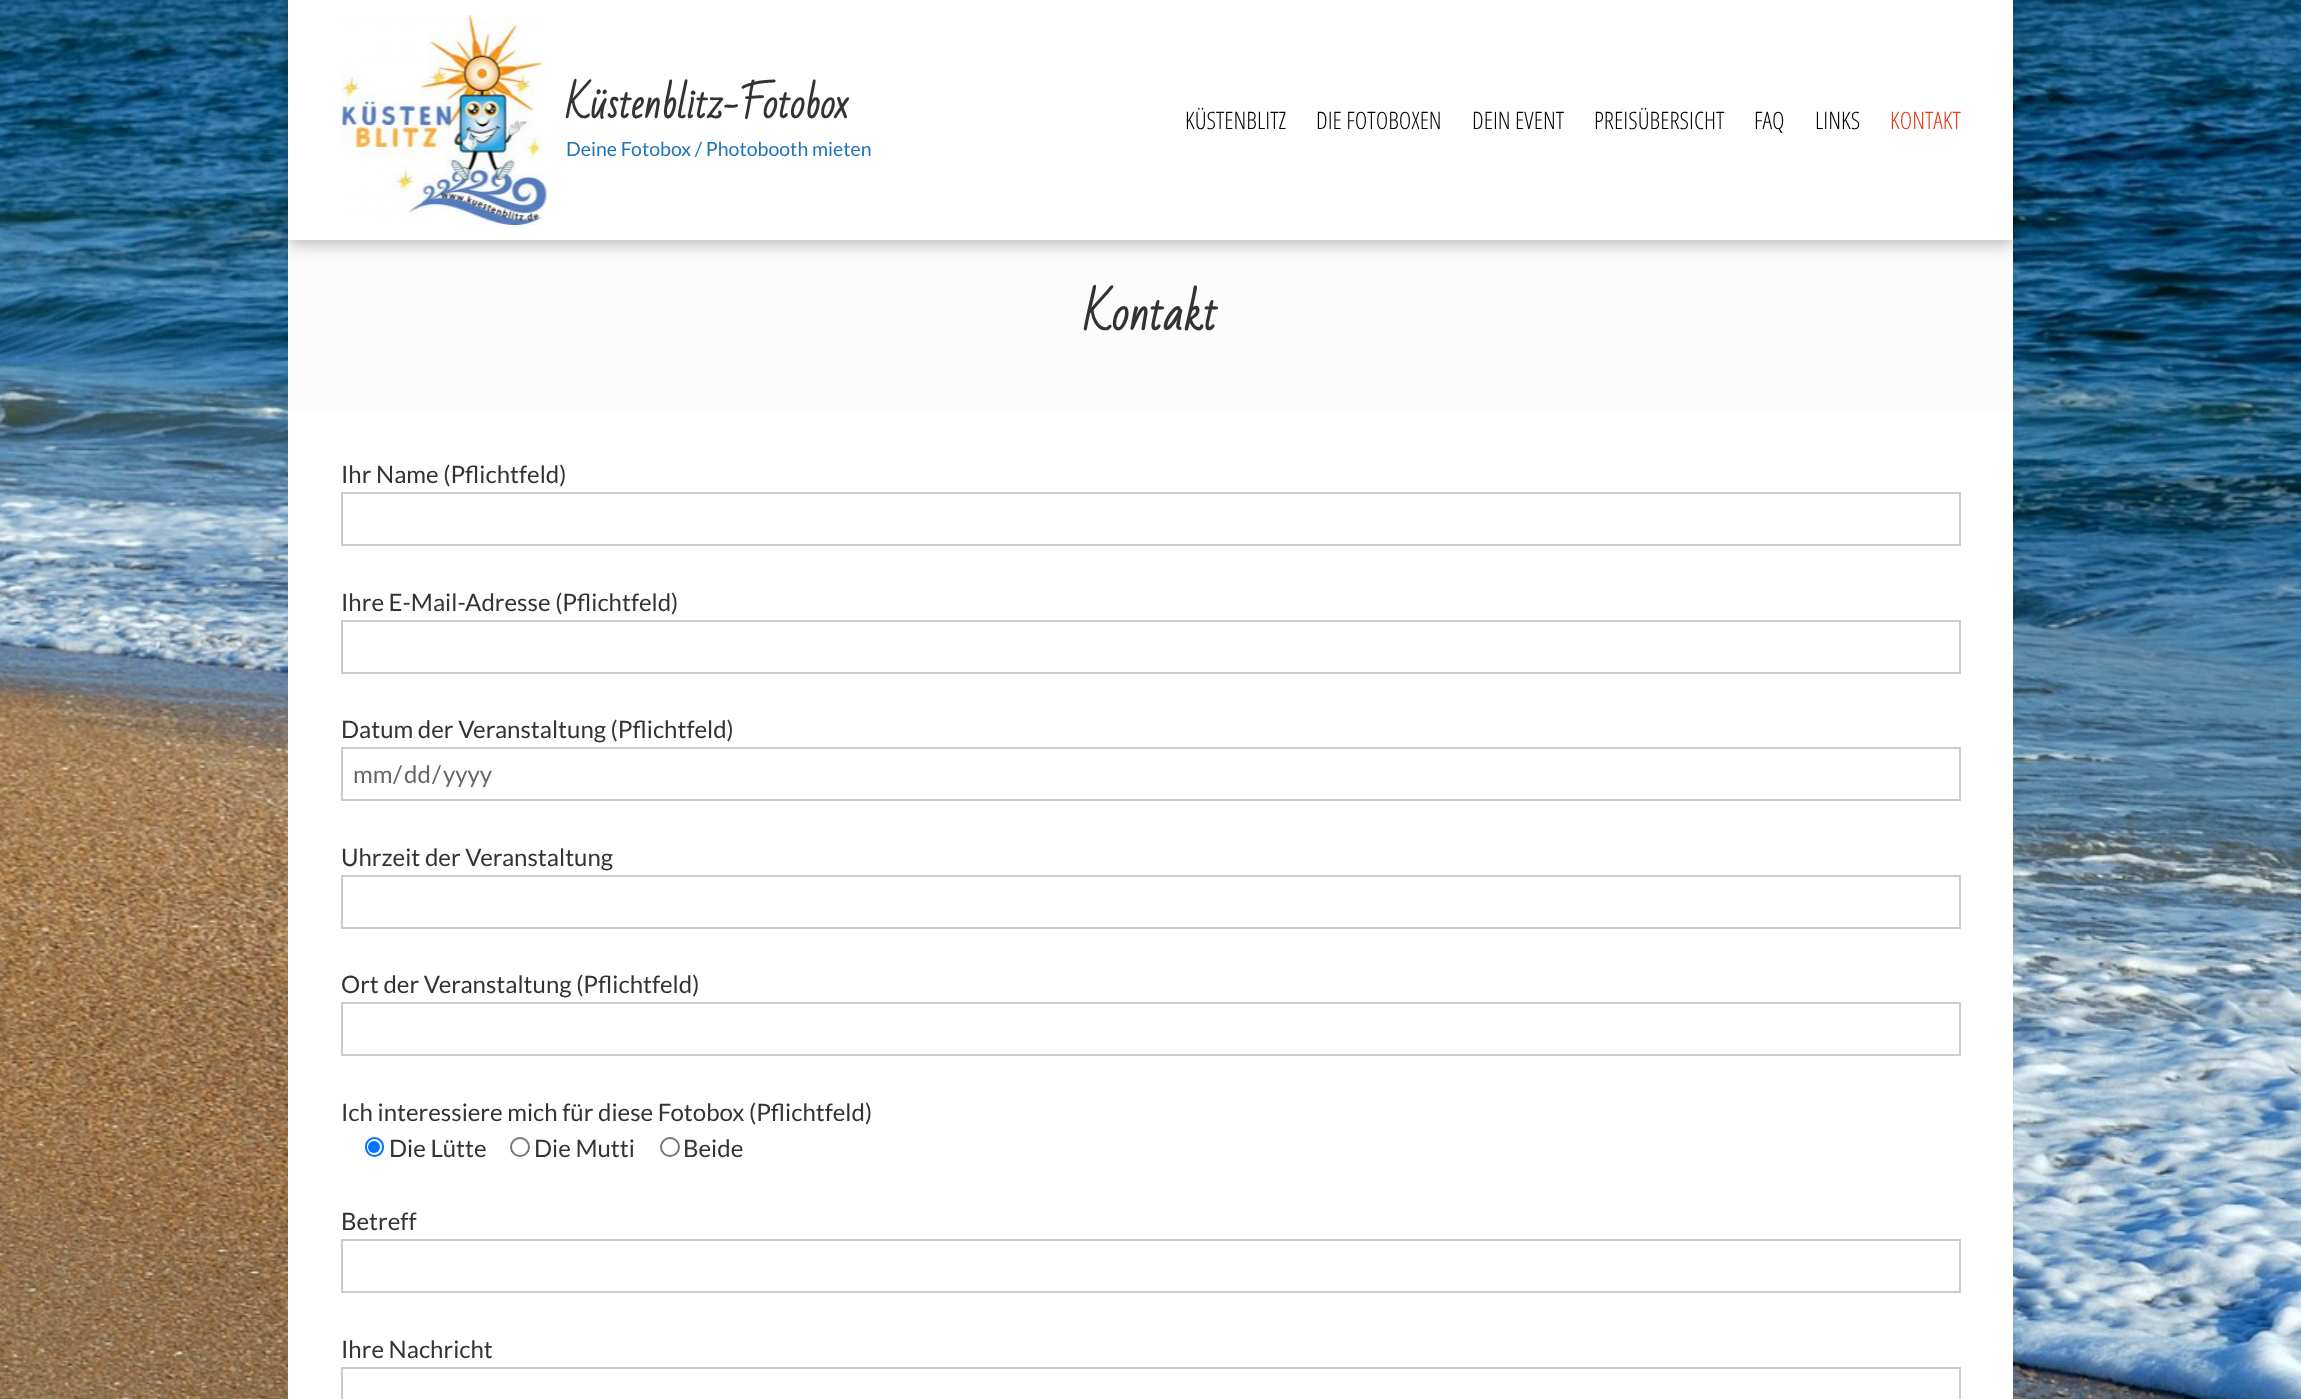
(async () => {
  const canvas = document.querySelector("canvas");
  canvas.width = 2301;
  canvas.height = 1399;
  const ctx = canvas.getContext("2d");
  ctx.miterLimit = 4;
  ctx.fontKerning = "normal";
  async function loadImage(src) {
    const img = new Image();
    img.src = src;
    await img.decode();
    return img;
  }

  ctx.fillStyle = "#ffffff";
  ctx.fillRect(0, 0, 2301, 1399);
  ctx.drawImage(await loadImage("img/1.png"), 0, 0, 2301, 1399);
  ctx.fillStyle = "#fcfcfc";
  ctx.fillRect(288, 240, 1725, 171);
  ctx.fillStyle = "rgba(0, 0, 0, 0.3)";
  ctx.filter = "blur(9px)";
  ctx.beginPath();
  ctx.rect(288, 3, 1725, 240);
  ctx.fill();
  ctx.filter = "none";
  ctx.fillStyle = "#ffffff";
  ctx.fillRect(288, 0, 1725, 240);
  ctx.drawImage(await loadImage("img/2.png"), 340, 15, 207, 210);
  ctx.fillRect(288, 411, 1725, 988);
  ctx.strokeStyle = "#cccccc";
  ctx.lineWidth = 2;
  ctx.strokeRect(342, 493, 1618, 52);
  ctx.strokeRect(342, 621, 1618, 52);
  ctx.strokeRect(342, 748, 1618, 52);
  ctx.strokeRect(342, 876, 1618, 52);
  ctx.strokeRect(342, 1003, 1618, 52);
  ctx.beginPath();
  ctx.roundRect(366, 1138, 17, 18, 8.5);
  ctx.strokeStyle = "#0075ff";
  ctx.stroke();
  ctx.fillStyle = "#0075ff";
  ctx.beginPath();
  ctx.arc(374, 1147, 6, 0, Math.PI * 2);
  ctx.fill();
  ctx.beginPath();
  ctx.arc(520, 1147, 9, 0, Math.PI * 2);
  ctx.strokeStyle = "#767676";
  ctx.stroke();
  ctx.beginPath();
  ctx.arc(670, 1147, 9, 0, Math.PI * 2);
  ctx.stroke();
  ctx.strokeStyle = "#cccccc";
  ctx.strokeRect(342, 1240, 1618, 52);
  ctx.strokeRect(342, 1368, 1618, 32);
  ctx.font = "bold 39px Bad Script";
  ctx.fillStyle = "#333333";
  ctx.fillText("Küstenblitz-Fotobox", 566, 118);
  ctx.font = "19.5px Lato";
  ctx.fillStyle = "#1e73be";
  ctx.fillText("Deine Fotobox / Photobooth mieten", 566, 156);
  ctx.font = "300 24px Open Sans Condensed";
  ctx.fillStyle = "#000000";
  for (const [text, x, y] of [
    ["KÜSTENBLITZ", 1185, 129],
    ["DIE FOTOBOXEN", 1316, 129],
    ["DEIN EVENT", 1472, 129],
    ["PREISÜBERSICHT", 1594, 129],
    ["FAQ", 1754, 129],
    ["LINKS", 1815, 129],
  ]) {
    ctx.fillText(text, x, y);
  }
  ctx.fillStyle = "#e23815";
  ctx.fillText("KONTAKT", 1890, 129);
  ctx.font = "bold 45px Bad Script";
  ctx.fillStyle = "#333333";
  ctx.fillText("Kontakt", 1084, 330);
  ctx.font = "24px Lato";
  for (const [text, x, y] of [
    ["Ihr Name (Pflichtfeld)", 341, 483],
    ["Ihre E-Mail-Adresse (Pflichtfeld)", 341, 611],
    ["Datum der Veranstaltung (Pflichtfeld)", 341, 738],
  ]) {
    ctx.fillText(text, x, y);
  }
  ctx.fillStyle = "#666666";
  for (const [text, x, y] of [
    ["mm", 353, 783],
    ["/", 393, 783],
    ["dd", 404, 783],
    ["/", 432, 783],
    ["yyyy", 443, 783],
  ]) {
    ctx.fillText(text, x, y);
  }
  ctx.fillStyle = "#333333";
  for (const [text, x, y] of [
    ["Uhrzeit der Veranstaltung", 341, 866],
    ["Ort der Veranstaltung (Pflichtfeld)", 341, 993],
    ["Ich interessiere mich für diese Fotobox (Pflichtfeld)", 341, 1121],
    ["Die Lütte", 389, 1157],
    ["Die Mutti", 534, 1157],
    ["Beide", 683, 1157],
    ["Betreff", 341, 1230],
    ["Ihre Nachricht", 341, 1358],
  ]) {
    ctx.fillText(text, x, y);
  }
})();
